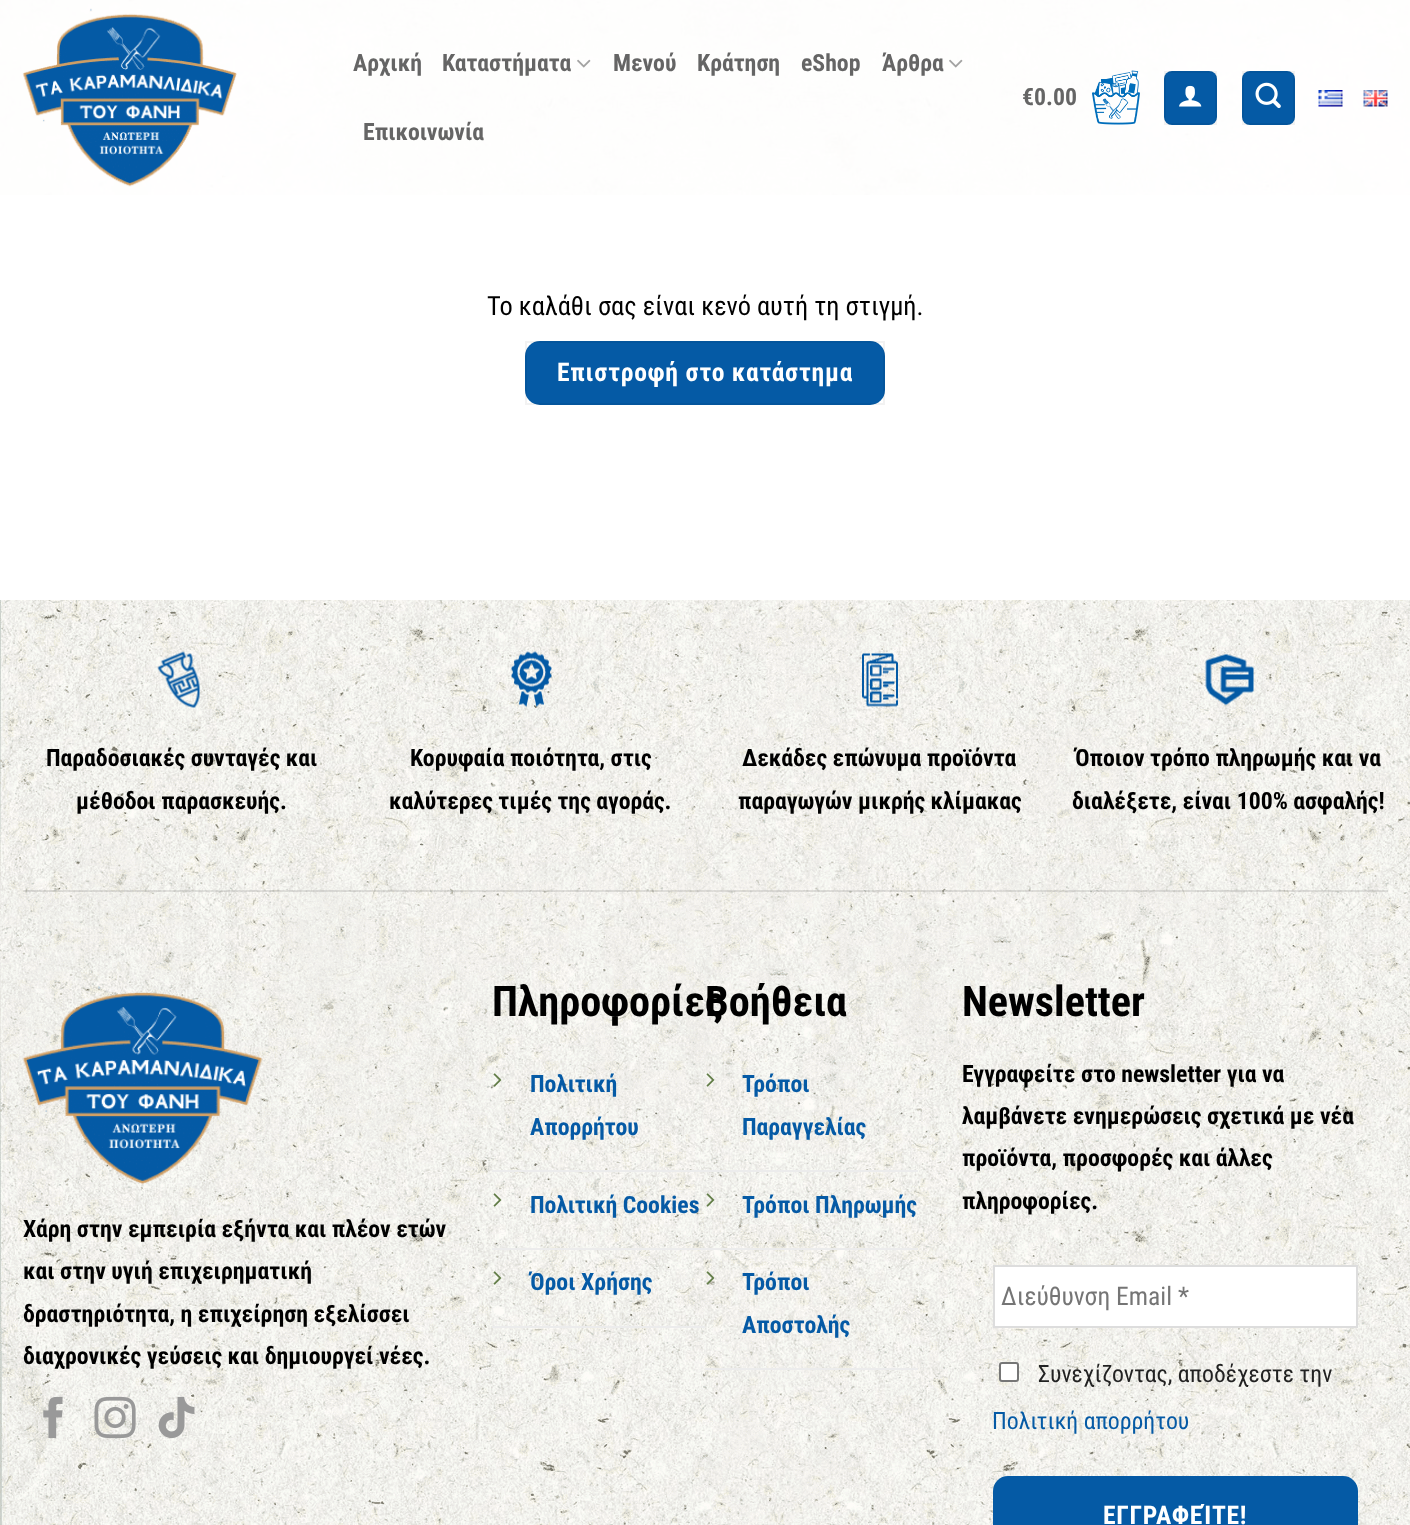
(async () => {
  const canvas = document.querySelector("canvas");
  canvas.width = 1410;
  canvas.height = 1525;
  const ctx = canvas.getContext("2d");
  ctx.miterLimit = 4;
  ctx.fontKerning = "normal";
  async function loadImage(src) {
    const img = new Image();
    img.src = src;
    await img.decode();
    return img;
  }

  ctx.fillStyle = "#ffffff";
  ctx.fillRect(0, 0, 1410, 1525);
  ctx.drawImage(await loadImage("img/1.png"), 0, 0, 1410, 195);
  ctx.drawImage(await loadImage("img/2.png"), 22, 8, 215, 179);
  ctx.drawImage(await loadImage("img/3.png"), 577, 59, 14, 9);
  ctx.drawImage(await loadImage("img/4.png"), 949, 59, 14, 9);
  ctx.drawImage(await loadImage("img/5.png"), 1092, 70, 48, 55);
  ctx.fillStyle = "#055aa5";
  ctx.beginPath();
  ctx.roundRect(1164, 71, 53, 54, 8);
  ctx.fill();
  ctx.strokeStyle = "rgba(0, 0, 0, 0.05)";
  ctx.lineWidth = 2;
  ctx.strokeRect(1165, 72, 51, 52);
  ctx.drawImage(await loadImage("img/6.png"), 1179, 85, 23, 22);
  ctx.beginPath();
  ctx.roundRect(1242, 71, 53, 54, 8);
  ctx.fill();
  ctx.strokeRect(1243, 72, 51, 52);
  ctx.drawImage(await loadImage("img/7.png"), 1255, 82, 26, 27);
  ctx.drawImage(await loadImage("img/8.png"), 1318, 90, 25, 17);
  ctx.drawImage(await loadImage("img/9.png"), 1363, 90, 25, 17);
  ctx.beginPath();
  ctx.roundRect(525, 341, 360, 64, 15);
  ctx.fill();
  ctx.strokeRect(526, 342, 358, 62);
  ctx.drawImage(await loadImage("img/10.png"), 0, 600, 1410, 925);
  ctx.drawImage(await loadImage("img/11.png"), 157, 651, 43, 57);
  ctx.drawImage(await loadImage("img/12.png"), 511, 651, 41, 56);
  ctx.drawImage(await loadImage("img/13.png"), 862, 653, 36, 54);
  ctx.drawImage(await loadImage("img/14.png"), 1205, 654, 49, 51);
  ctx.fillStyle = "rgba(0, 0, 0, 0.1)";
  ctx.fillRect(23, 890, 1365, 2);
  ctx.drawImage(await loadImage("img/15.png"), 22, 986, 241, 199);
  ctx.drawImage(await loadImage("img/16.png"), 43, 1396, 20, 43);
  ctx.drawImage(await loadImage("img/17.png"), 94, 1396, 42, 43);
  ctx.drawImage(await loadImage("img/18.png"), 158, 1396, 37, 43);
  ctx.fillStyle = "#ececec";
  ctx.fillRect(492, 1170, 426, 2);
  ctx.drawImage(await loadImage("img/19.png"), 493, 1073, 9, 14);
  ctx.fillRect(492, 1248, 426, 2);
  ctx.drawImage(await loadImage("img/20.png"), 493, 1193, 9, 14);
  ctx.fillRect(492, 1326, 213, 2);
  ctx.drawImage(await loadImage("img/21.png"), 493, 1271, 9, 14);
  ctx.drawImage(await loadImage("img/22.png"), 706, 1073, 9, 14);
  ctx.drawImage(await loadImage("img/23.png"), 706, 1193, 9, 14);
  ctx.fillRect(705, 1368, 213, 2);
  ctx.drawImage(await loadImage("img/24.png"), 706, 1271, 9, 14);
  ctx.fillStyle = "#ffffff";
  ctx.beginPath();
  ctx.rect(994, 1266, 363, 61);
  ctx.fill();
  ctx.strokeStyle = "#dddddd";
  ctx.stroke();
  ctx.beginPath();
  ctx.roundRect(1000, 1363, 18, 18, 2);
  ctx.fill();
  ctx.strokeStyle = "#767676";
  ctx.stroke();
  ctx.fillStyle = "#055aa5";
  ctx.beginPath();
  ctx.roundRect(993, 1476, 365, 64, 15);
  ctx.fill();
  ctx.font = "bold 23.75px Roboto Condensed";
  ctx.fillStyle = "#656565";
  for (const [text, x, y] of [
    ["Αρχική", 353, 71],
    ["Καταστήματα", 442, 71],
    ["Μενού", 613, 71],
    ["Κράτηση", 697, 71],
    ["eShop", 801, 71],
    ["Άρθρα", 882, 71],
    ["Επικοινωνία", 363, 140],
    ["€0.00", 1022, 105],
  ]) {
    ctx.fillText(text, x, y);
  }
  ctx.font = "26.4px Roboto Condensed";
  ctx.fillStyle = "#000000";
  ctx.fillText("Το καλάθι σας είναι κενό αυτή τη στιγμή.", 487, 315);
  ctx.letterSpacing = "0.75px";
  ctx.font = "bold 25.6px Roboto Condensed";
  ctx.fillStyle = "#ffffff";
  ctx.fillText("Επιστροφή στο κατάστημα", 557, 381);
  ctx.letterSpacing = "0px";
  ctx.font = "bold 23.75px Roboto Condensed";
  ctx.fillStyle = "#000000";
  for (const [text, x, y] of [
    ["Παραδοσιακές συνταγές και", 46, 766],
    ["μέθοδοι παρασκευής.", 76, 809],
    ["Κορυφαία ποιότητα, στις", 410, 766],
    ["καλύτερες τιμές της αγοράς.", 389, 809],
    ["Δεκάδες επώνυμα προϊόντα", 742, 766],
    ["παραγωγών μικρής κλίμακας", 738, 809],
    ["Όποιον τρόπο πληρωμής και να", 1075, 766],
    ["διαλέξετε, είναι 100% ασφαλής!", 1072, 809],
    ["Χάρη στην εμπειρία εξήντα και πλέον ετών", 23, 1237],
    ["και στην υγιή επιχειρηματική", 23, 1279],
    ["δραστηριότητα, η επιχείρηση εξελίσσει", 23, 1322],
    ["διαχρονικές γεύσεις και δημιουργεί νέες.", 23, 1364],
  ]) {
    ctx.fillText(text, x, y);
  }
  ctx.font = "bold 42.25px Roboto Condensed";
  ctx.fillText("Πληροφορίες", 492, 1016);
  ctx.font = "bold 23.75px Roboto Condensed";
  ctx.fillStyle = "#055aa5";
  for (const [text, x, y] of [
    ["Πολιτική", 530, 1092],
    ["Απορρήτου", 530, 1135],
    ["Πολιτική Cookies", 530, 1213],
    ["Όροι Χρήσης", 530, 1290],
  ]) {
    ctx.fillText(text, x, y);
  }
  ctx.font = "bold 42.25px Roboto Condensed";
  ctx.fillStyle = "#000000";
  ctx.fillText("Βοήθεια", 705, 1016);
  ctx.font = "bold 23.75px Roboto Condensed";
  ctx.fillStyle = "#055aa5";
  for (const [text, x, y] of [
    ["Τρόποι", 742, 1092],
    ["Παραγγελίας", 742, 1135],
    ["Τρόποι Πληρωμής", 742, 1213],
    ["Τρόποι", 742, 1290],
    ["Αποστολής", 742, 1333],
  ]) {
    ctx.fillText(text, x, y);
  }
  ctx.font = "bold 42.25px Roboto Condensed";
  ctx.fillStyle = "#000000";
  ctx.fillText("Newsletter", 962, 1016);
  ctx.font = "bold 23.75px Roboto Condensed";
  for (const [text, x, y] of [
    ["Εγγραφείτε στο newsletter για να", 962, 1082],
    ["λαμβάνετε ενημερώσεις σχετικά με νέα", 962, 1124],
    ["προϊόντα, προσφορές και άλλες", 962, 1166],
    ["πληροφορίες.", 962, 1209],
  ]) {
    ctx.fillText(text, x, y);
  }
  ctx.font = "25.6px Roboto Condensed";
  ctx.fillStyle = "#757575";
  ctx.fillText("Διεύθυνση Email *", 1001, 1305);
  ctx.font = "23.75px Roboto Condensed";
  ctx.fillStyle = "#222222";
  ctx.fillText("Συνεχίζοντας, αποδέχεστε την", 1038, 1382);
  ctx.fillStyle = "#055aa5";
  ctx.fillText("Πολιτική απορρήτου", 992, 1429);
  ctx.letterSpacing = "0.75px";
  ctx.font = "bold 25.6px Roboto Condensed";
  ctx.fillStyle = "#ffffff";
  ctx.fillText("ΕΓΓΡΑΦΕΊΤΕ!", 1103, 1524);
})();
